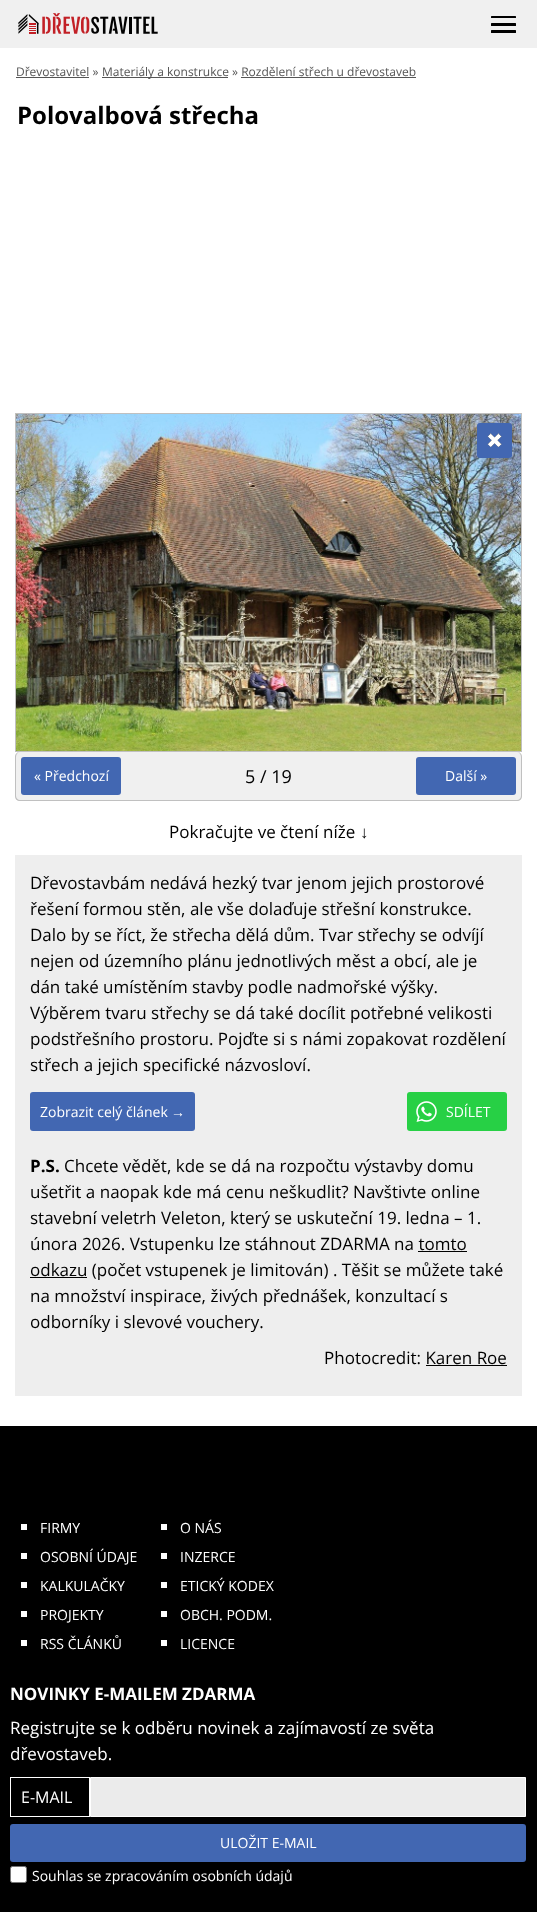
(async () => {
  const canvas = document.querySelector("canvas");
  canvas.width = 537;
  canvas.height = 1912;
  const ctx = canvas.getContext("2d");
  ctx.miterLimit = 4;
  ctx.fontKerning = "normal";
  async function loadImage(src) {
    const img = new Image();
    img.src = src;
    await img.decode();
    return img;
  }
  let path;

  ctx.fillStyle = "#ffffff";
  ctx.fillRect(0, 0, 537, 1912);
  ctx.fillStyle = "#f0f0f0";
  ctx.fillRect(0, 0, 537, 48);
  ctx.drawImage(await loadImage("img/1.png"), 18, 13, 140, 21);
  ctx.fillStyle = "#000000";
  ctx.beginPath();
  ctx.roundRect(491, 16, 25, 2, 0.5);
  ctx.fill();
  ctx.beginPath();
  ctx.roundRect(491, 30, 25, 3, 0.5);
  ctx.fill();
  ctx.beginPath();
  ctx.roundRect(491, 23, 25, 3, 0.5);
  ctx.fill();
  for (const [x, y, w, h, color] of [
    [16, 77, 73, 1, "#555555"],
    [102, 77, 126, 1, "#555555"],
    [241, 77, 175, 1, "#555555"],
  ]) {
    ctx.fillStyle = color;
    ctx.fillRect(x, y, w, h);
  }
  ctx.strokeStyle = "#c0c0c0";
  ctx.strokeRect(15.5, 413.5, 506, 338);
  ctx.drawImage(await loadImage("img/2.png"), 16, 414, 505, 337);
  ctx.fillStyle = "#4267b2";
  ctx.beginPath();
  ctx.roundRect(477, 423, 35, 35, 3);
  ctx.fill();
  ctx.drawImage(await loadImage("img/3.png"), 487, 433, 15, 14);
  ctx.fillStyle = "#f0f0f0";
  ctx.beginPath();
  ctx.roundRect(15, 752, 507, 49, 5);
  ctx.fill();
  ctx.fillStyle = "#c0c0c0";
  path = new Path2D("M20 752H517C520 752 522 754 522 757V796C522 799 520 801 517 801H20C17 801 15 799 15 796V757C15 754 17 752 20 752ZM20 752H517C519 752 521 754 521 757V796C521 798 519 800 517 800H20C18 800 16 798 16 796V757C16 754 18 752 20 752Z");
  ctx.fill(path, "evenodd");
  ctx.fillStyle = "#4267b2";
  ctx.beginPath();
  ctx.roundRect(21, 757, 100, 38, 3);
  ctx.fill();
  ctx.beginPath();
  ctx.roundRect(416, 757, 100, 38, 3);
  ctx.fill();
  ctx.fillStyle = "#eeeeee";
  ctx.fillRect(15, 855, 507, 541);
  ctx.fillStyle = "#4267b2";
  ctx.beginPath();
  ctx.roundRect(30, 1092, 165, 39, 3);
  ctx.fill();
  ctx.fillStyle = "#27d045";
  ctx.beginPath();
  ctx.roundRect(407, 1092, 100, 39, 3);
  ctx.fill();
  ctx.drawImage(await loadImage("img/4.png"), 416, 1101, 21, 21);
  for (const [x, y, w, h, color] of [
    [418, 1251, 49, 1, "#000000"],
    [30, 1277, 57, 1, "#000000"],
    [426, 1365, 81, 1, "#000000"],
    [0, 1426, 537, 486, "#000000"],
    [21, 1524, 6, 6, "#ffffff"],
    [21, 1553, 6, 6, "#ffffff"],
    [21, 1582, 6, 6, "#ffffff"],
    [21, 1611, 6, 6, "#ffffff"],
    [21, 1640, 6, 6, "#ffffff"],
    [161, 1524, 6, 6, "#ffffff"],
    [161, 1553, 6, 6, "#ffffff"],
    [161, 1582, 6, 6, "#ffffff"],
    [161, 1611, 6, 6, "#ffffff"],
    [161, 1640, 6, 6, "#ffffff"],
  ]) {
    ctx.fillStyle = color;
    ctx.fillRect(x, y, w, h);
  }
  ctx.strokeStyle = "#ffffff";
  ctx.strokeRect(10.5, 1777.5, 79, 39);
  ctx.fillStyle = "#ebebeb";
  ctx.beginPath();
  ctx.rect(90.5, 1777.5, 435, 39);
  ctx.fill();
  ctx.stroke();
  ctx.fillStyle = "#4267b2";
  ctx.beginPath();
  ctx.roundRect(10, 1824, 516, 38, 3);
  ctx.fill();
  ctx.fillStyle = "#ffffff";
  ctx.beginPath();
  ctx.roundRect(10.5, 1866.5, 16, 16, 2);
  ctx.fill();
  ctx.strokeStyle = "#767676";
  ctx.stroke();
  ctx.font = "12px Open Sans";
  ctx.fillStyle = "#555555";
  ctx.fillText("Dřevostavitel »", 16, 76);
  ctx.fillText("Materiály a konstrukce » Rozdělení střech u dřevostaveb", 102, 76);
  ctx.font = "bold 24px Open Sans";
  ctx.fillStyle = "#000000";
  ctx.fillText("Polovalbová střecha", 17, 124);
  ctx.font = "14px Open Sans";
  ctx.fillStyle = "#ffffff";
  ctx.fillText("« Předchozí", 34, 781);
  ctx.font = "18px Open Sans";
  ctx.fillStyle = "#000000";
  ctx.fillText("5 / 19", 245, 783);
  ctx.font = "14px Open Sans";
  ctx.fillStyle = "#ffffff";
  ctx.fillText("Další »", 445, 781);
  ctx.font = "17px Open Sans";
  ctx.fillStyle = "#000000";
  ctx.fillText("Pokračujte ve čtení níže", 169, 838);
  ctx.font = "17px Liberation Sans";
  ctx.fillText("↓", 360, 838);
  ctx.font = "17px Open Sans";
  for (const [text, x, y] of [
    ["Dřevostavbám nedává hezký tvar jenom jejich prostorové", 30, 889],
    ["řešení formou stěn, ale vše dolaďuje střešní konstrukce.", 30, 915],
    ["Dalo by se říct, že střecha dělá dům. Tvar střechy se odvíjí", 30, 941],
    ["nejen od územního plánu jednotlivých měst a obcí, ale je", 30, 967],
    ["dán také umístěním stavby podle nadmořské výšky.", 30, 993],
    ["Výběrem tvaru střechy se dá také docílit potřebné velikosti", 30, 1019],
    ["podstřešního prostoru. Pojďte si s námi zopakovat rozdělení", 30, 1045],
    ["střech a jejich specifické názvosloví.", 30, 1071],
  ]) {
    ctx.fillText(text, x, y);
  }
  ctx.font = "14px Open Sans";
  ctx.fillStyle = "#ffffff";
  ctx.fillText("Zobrazit celý článek", 40, 1117);
  ctx.font = "14px Liberation Sans";
  ctx.fillText("→", 171, 1117);
  ctx.font = "14px Open Sans";
  ctx.fillText("SDÍLET", 446, 1117);
  ctx.font = "bold 17px Open Sans";
  ctx.fillStyle = "#000000";
  ctx.fillText("P.S.", 30, 1172);
  ctx.font = "17px Open Sans";
  for (const [text, x, y] of [
    ["Chcete vědět, kde se dá na rozpočtu výstavby domu", 64, 1172],
    ["ušetřit a naopak kde má cenu neškudlit? Navštivte online", 30, 1198],
    ["stavební veletrh Veleton, který se uskuteční 19. ledna – 1.", 30, 1224],
    ["února 2026. Vstupenku lze stáhnout ZDARMA na tomto", 30, 1250],
    ["odkazu (počet vstupenek je limitován) . Těšit se můžete také", 30, 1276],
    ["na množství inspirace, živých přednášek, konzultací s", 30, 1302],
    ["odborníky i slevové vouchery.", 30, 1328],
    ["Photocredit: Karen Roe", 324, 1364],
  ]) {
    ctx.fillText(text, x, y);
  }
  ctx.font = "14px Open Sans";
  ctx.fillStyle = "#ffffff";
  for (const [text, x, y] of [
    ["FIRMY", 40, 1533],
    ["OSOBNÍ ÚDAJE", 40, 1562],
    ["KALKULAČKY", 40, 1591],
    ["PROJEKTY", 40, 1620],
    ["RSS ČLÁNKŮ", 40, 1649],
    ["O NÁS", 180, 1533],
    ["INZERCE", 180, 1562],
    ["ETICKÝ KODEX", 180, 1591],
    ["OBCH. PODM.", 180, 1620],
    ["LICENCE", 180, 1649],
  ]) {
    ctx.fillText(text, x, y);
  }
  ctx.font = "bold 17px Open Sans";
  ctx.fillText("NOVINKY E-MAILEM ZDARMA", 10, 1700);
  ctx.font = "17px Open Sans";
  ctx.fillText("Registrujte se k odběru novinek a zajímavostí ze světa", 10, 1734);
  ctx.fillText("dřevostaveb.", 10, 1760);
  ctx.font = "16px Open Sans";
  ctx.fillText("E-MAIL", 21, 1803);
  ctx.font = "14px Open Sans";
  ctx.fillText("ULOŽIT E-MAIL", 220, 1848);
  ctx.fillText("Souhlas se zpracováním osobních údajů", 32, 1881);
})();
